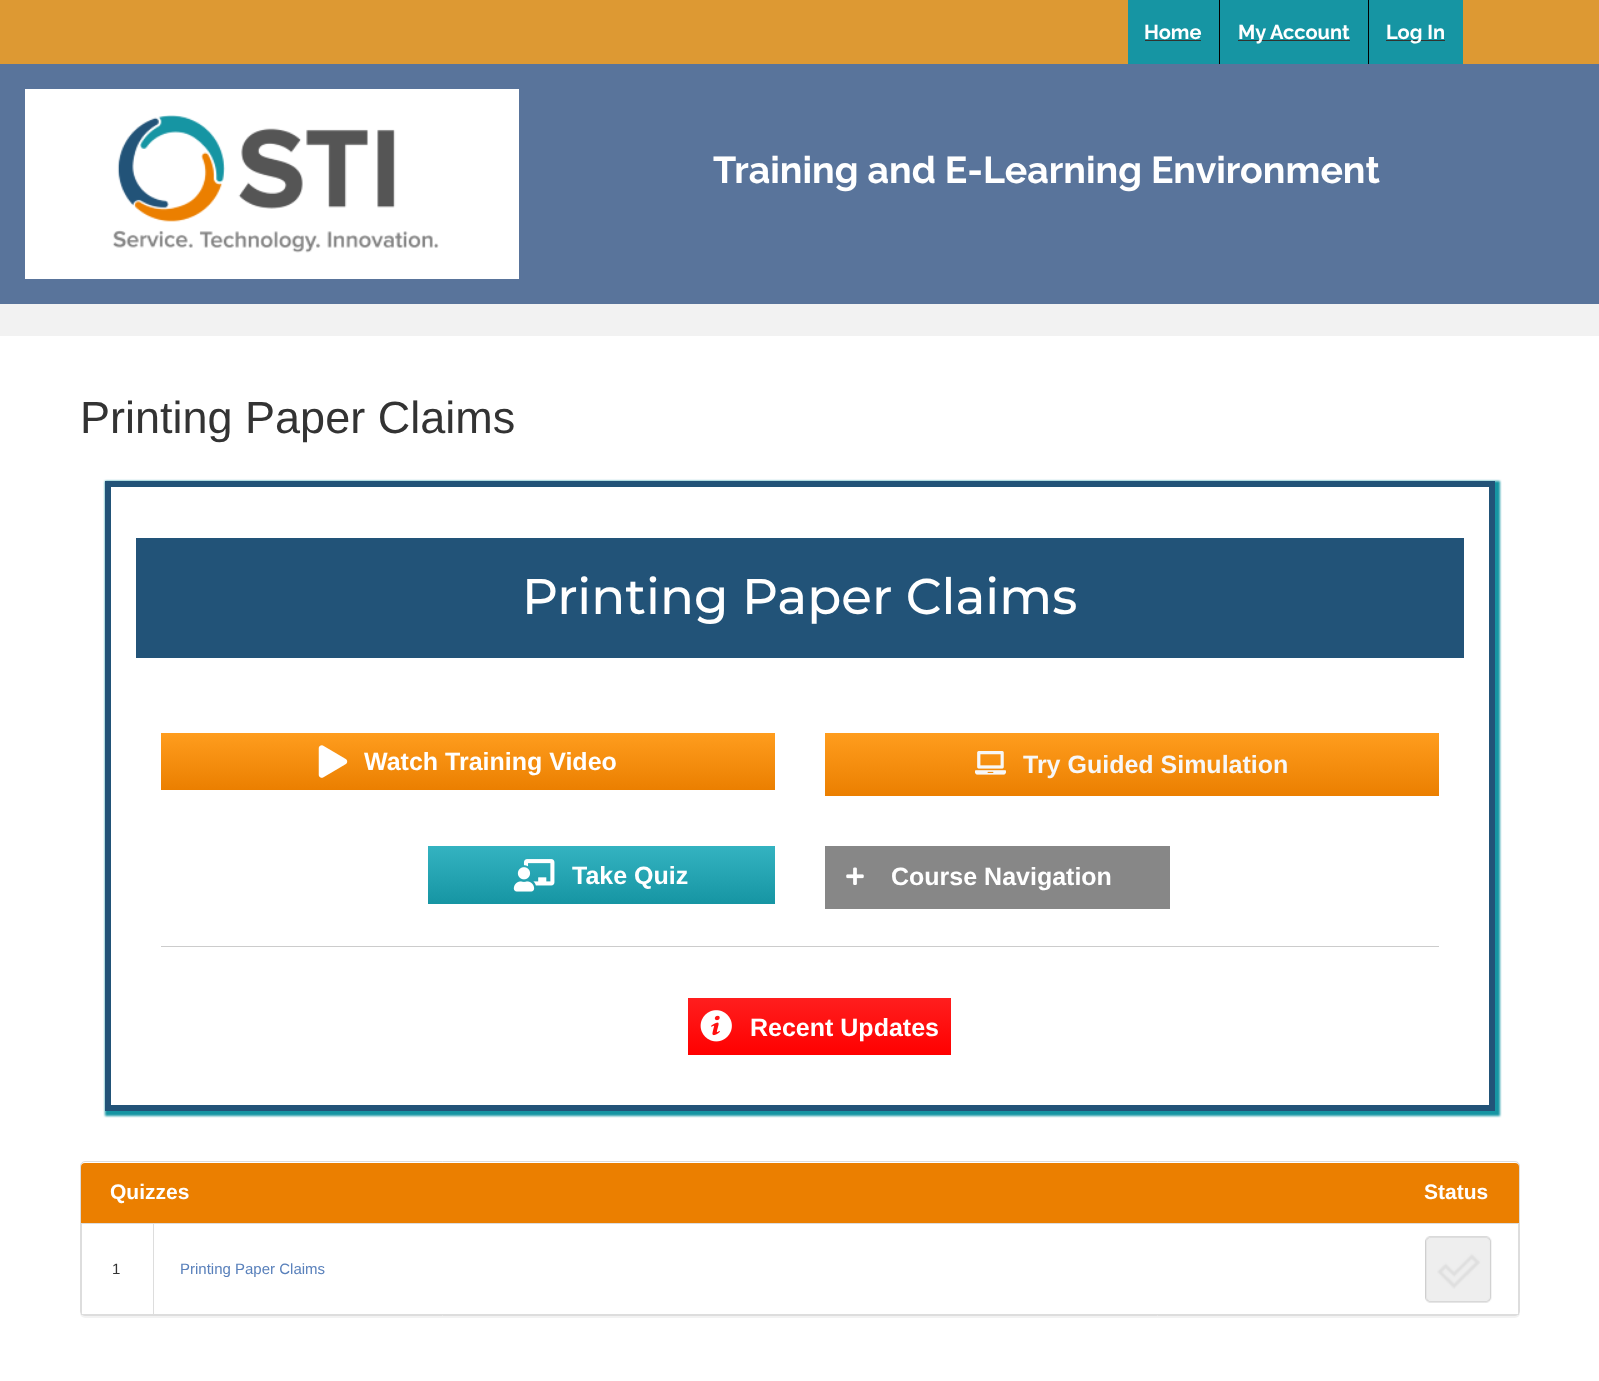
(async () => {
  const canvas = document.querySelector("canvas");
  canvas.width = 1599;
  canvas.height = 1381;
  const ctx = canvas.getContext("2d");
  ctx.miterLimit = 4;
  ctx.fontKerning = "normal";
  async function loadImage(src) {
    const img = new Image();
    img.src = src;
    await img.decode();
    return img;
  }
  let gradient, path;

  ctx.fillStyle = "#f2f2f2";
  ctx.fillRect(0, 0, 1599, 1381);
  for (const [x, y, w, h, color] of [
    [0, 0, 1599, 64, "#dd9933"],
    [1128, 0, 335, 64, "#1695a3"],
    [1145, 40, 56, 1, "#31332f"],
    [1219, 0, 1, 64, "#000000"],
    [1238, 40, 112, 1, "#31332f"],
    [1368, 0, 1, 64, "#000000"],
    [1386, 40, 59, 1, "#31332f"],
    [0, 64, 1599, 240, "#59749b"],
    [25, 89, 494, 190, "#ffffff"],
  ]) {
    ctx.fillStyle = color;
    ctx.fillRect(x, y, w, h);
  }
  ctx.drawImage(await loadImage("img/1.png"), 112, 115, 327, 138);
  ctx.fillRect(0, 336, 1599, 1045);
  ctx.save();
  path = new Path2D("M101 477H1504V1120H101ZM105 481H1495V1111H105Z");
  ctx.clip(path, "evenodd");
  ctx.fillStyle = "#1695a3";
  ctx.filter = "blur(1px)";
  ctx.beginPath();
  ctx.rect(105, 481, 1395, 635);
  ctx.fill();
  ctx.filter = "none";
  ctx.restore();
  ctx.strokeStyle = "#225378";
  ctx.lineWidth = 6;
  ctx.strokeRect(108, 484, 1384, 624);
  ctx.fillStyle = "#225378";
  ctx.fillRect(136, 538, 1328, 120);
  gradient = ctx.createLinearGradient(468, 733, 468, 790);
  gradient.addColorStop(0, "#ff9d1e");
  gradient.addColorStop(1, "#eb7f00");
  ctx.fillStyle = gradient;
  ctx.fillRect(161, 733, 614, 57);
  ctx.drawImage(await loadImage("img/2.png"), 318, 745, 30, 33);
  gradient = ctx.createLinearGradient(1132, 733, 1132, 796);
  gradient.addColorStop(0, "#ff9d1e");
  gradient.addColorStop(1, "#eb7f00");
  ctx.fillStyle = gradient;
  ctx.fillRect(825, 733, 614, 63);
  ctx.drawImage(await loadImage("img/3.png"), 975, 751, 31, 24);
  gradient = ctx.createLinearGradient(601, 846, 601, 904);
  gradient.addColorStop(0, "#34b3c1");
  gradient.addColorStop(1, "#1695a3");
  ctx.fillStyle = gradient;
  ctx.fillRect(428, 846, 347, 58);
  ctx.drawImage(await loadImage("img/4.png"), 513, 859, 42, 33);
  ctx.fillStyle = "#878787";
  ctx.fillRect(825, 846, 345, 63);
  ctx.drawImage(await loadImage("img/5.png"), 846, 867, 18, 18);
  ctx.fillStyle = "#cccccc";
  ctx.fillRect(161, 946, 1278, 1);
  gradient = ctx.createLinearGradient(819, 998, 819, 1055);
  gradient.addColorStop(0, "#ff1e1e");
  gradient.addColorStop(1, "#ff0000");
  ctx.fillStyle = gradient;
  ctx.fillRect(688, 998, 263, 57);
  ctx.drawImage(await loadImage("img/6.png"), 700, 1010, 32, 32);
  ctx.fillStyle = "rgba(0, 0, 0, 0.05)";
  ctx.filter = "blur(0.5px)";
  ctx.beginPath();
  ctx.roundRect(80, 1163, 1440, 155, 5);
  ctx.fill();
  ctx.filter = "none";
  ctx.fillStyle = "#ffffff";
  ctx.beginPath();
  ctx.roundRect(80.5, 1161.5, 1439, 154, 4.5);
  ctx.fill();
  ctx.strokeStyle = "#dddddd";
  ctx.lineWidth = 1;
  ctx.stroke();
  ctx.fillStyle = "#eb7f00";
  ctx.beginPath();
  ctx.roundRect(81, 1163, 1438, 60, [4, 4, 0, 0]);
  ctx.fill();
  ctx.strokeRect(81.5, 1223.5, 1437, 91);
  ctx.fillStyle = "#dddddd";
  ctx.fillRect(153, 1223, 1, 92);
  ctx.drawImage(await loadImage("img/7.png"), 1425, 1236, 67, 67);
  ctx.font = "bold 20px Raleway";
  ctx.fillStyle = "#ffffff";
  for (const [text, x, y] of [
    ["Home", 1144, 39],
    ["My Account", 1238, 39],
    ["Log In", 1386, 39],
  ]) {
    ctx.fillText(text, x, y);
  }
  ctx.font = "bold 37.5px Raleway";
  ctx.fillText("Training and E-Learning Environment", 713, 183);
  ctx.font = "45px Liberation Sans";
  ctx.fillStyle = "#333333";
  ctx.fillText("Printing Paper Claims", 80, 433);
  ctx.font = "100 50px Montserrat";
  ctx.fillStyle = "#ffffff";
  ctx.fillText("Printing Paper Claims", 522, 614);
  ctx.font = "bold 25px Liberation Sans";
  ctx.fillText("Watch Training Video", 364, 770);
  ctx.fillStyle = "#f7f7f7";
  ctx.fillText("Try Guided Simulation", 1023, 773);
  ctx.fillStyle = "#ffffff";
  for (const [text, x, y] of [
    ["Take Quiz", 572, 884],
    ["Course Navigation", 891, 885],
    ["Recent Updates", 750, 1036],
  ]) {
    ctx.fillText(text, x, y);
  }
  ctx.font = "bold 21px Liberation Sans";
  ctx.fillText("Quizzes", 110, 1199);
  ctx.fillText("Status", 1424, 1199);
  ctx.font = "15px Liberation Sans";
  ctx.fillStyle = "#333333";
  ctx.fillText("1", 112, 1274);
  ctx.fillStyle = "#5980bb";
  ctx.fillText("Printing Paper Claims", 180, 1274);
})();
